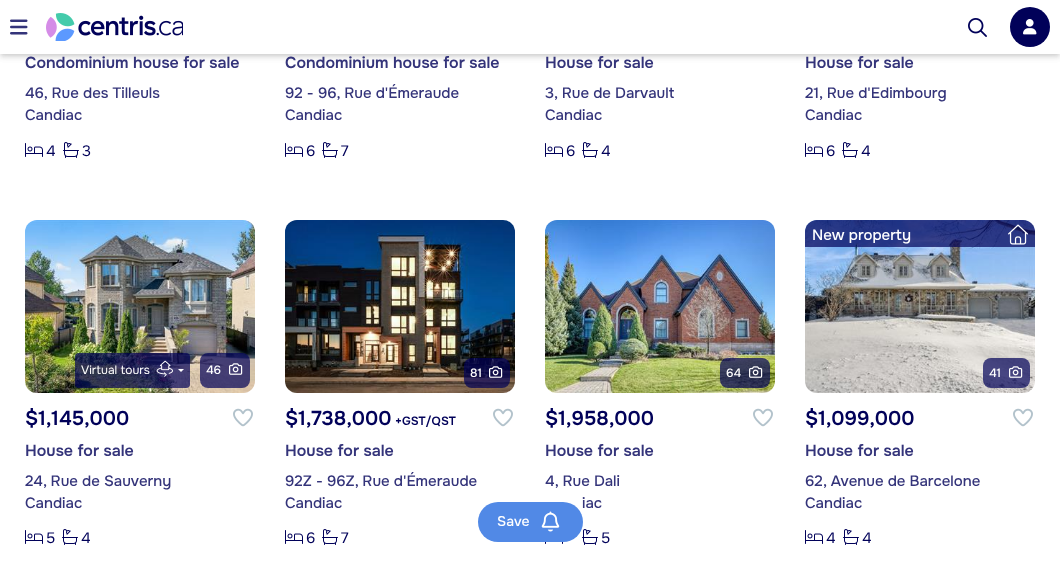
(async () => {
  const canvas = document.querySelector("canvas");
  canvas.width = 1060;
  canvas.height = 572;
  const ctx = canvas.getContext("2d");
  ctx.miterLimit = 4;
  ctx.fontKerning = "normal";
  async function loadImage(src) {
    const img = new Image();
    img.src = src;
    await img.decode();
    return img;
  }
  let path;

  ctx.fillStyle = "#ffffff";
  ctx.fillRect(0, 0, 1060, 572);
  ctx.fillStyle = "rgba(0, 0, 0, 0.06)";
  ctx.filter = "blur(5px)";
  ctx.beginPath();
  ctx.rect(0, 1, 1060, 54);
  ctx.fill();
  ctx.filter = "none";
  ctx.fillStyle = "rgba(0, 0, 0, 0.07)";
  ctx.filter = "blur(2.5px)";
  ctx.beginPath();
  ctx.rect(0, 4, 1060, 54);
  ctx.fill();
  ctx.filter = "none";
  ctx.fillStyle = "rgba(0, 0, 0, 0.1)";
  ctx.filter = "blur(2px)";
  ctx.beginPath();
  ctx.rect(1, 3, 1058, 52);
  ctx.fill();
  ctx.filter = "none";
  ctx.fillStyle = "#ffffff";
  ctx.fillRect(0, 0, 1060, 54);
  ctx.drawImage(await loadImage("img/1.png"), 10, 19, 18, 16);
  ctx.drawImage(await loadImage("img/2.png"), 46, 13, 137, 28);
  ctx.drawImage(await loadImage("img/3.png"), 968, 18, 19, 19);
  ctx.fillStyle = "#010159";
  ctx.beginPath();
  ctx.arc(1030, 27, 20, 0, Math.PI * 2);
  ctx.fill();
  ctx.drawImage(await loadImage("img/4.png"), 1023, 19, 14, 16);
  ctx.drawImage(await loadImage("img/5.png"), 25, 143, 18, 14);
  ctx.drawImage(await loadImage("img/6.png"), 63, 142, 16, 16);
  ctx.drawImage(await loadImage("img/5.png"), 285, 143, 18, 14);
  ctx.drawImage(await loadImage("img/6.png"), 322, 142, 16, 16);
  ctx.drawImage(await loadImage("img/5.png"), 545, 143, 18, 14);
  ctx.drawImage(await loadImage("img/6.png"), 582, 142, 16, 16);
  ctx.drawImage(await loadImage("img/5.png"), 805, 143, 18, 14);
  ctx.drawImage(await loadImage("img/6.png"), 842, 142, 16, 16);
  ctx.drawImage(await loadImage("img/7.png"), 25, 220, 230, 173);
  ctx.fillStyle = "rgba(1, 1, 89, 0.7)";
  ctx.beginPath();
  ctx.roundRect(75, 353, 115, 35, 4);
  ctx.fill();
  ctx.drawImage(await loadImage("img/8.png"), 156, 360, 17, 17);
  ctx.fillStyle = "#ffffff";
  path = new Path2D("M178 369H184L181 372Z");
  ctx.fill(path);
  ctx.fillStyle = "rgba(1, 1, 89, 0.7)";
  ctx.beginPath();
  ctx.roundRect(200, 353, 50, 35, 8);
  ctx.fill();
  ctx.drawImage(await loadImage("img/9.png"), 229, 363, 14, 12);
  ctx.drawImage(await loadImage("img/10.png"), 233, 408, 20, 19);
  ctx.drawImage(await loadImage("img/5.png"), 25, 530, 18, 14);
  ctx.drawImage(await loadImage("img/6.png"), 62, 529, 16, 16);
  ctx.drawImage(await loadImage("img/11.png"), 285, 220, 230, 173);
  ctx.beginPath();
  ctx.roundRect(464, 358, 46, 30, 8);
  ctx.fill();
  ctx.drawImage(await loadImage("img/12.png"), 489, 366, 14, 12);
  ctx.drawImage(await loadImage("img/10.png"), 493, 408, 20, 19);
  ctx.drawImage(await loadImage("img/5.png"), 285, 530, 18, 14);
  ctx.drawImage(await loadImage("img/6.png"), 322, 529, 16, 16);
  ctx.drawImage(await loadImage("img/13.png"), 545, 220, 230, 173);
  ctx.beginPath();
  ctx.roundRect(720, 358, 50, 30, 8);
  ctx.fill();
  ctx.drawImage(await loadImage("img/14.png"), 749, 366, 14, 12);
  ctx.drawImage(await loadImage("img/10.png"), 753, 408, 20, 19);
  ctx.drawImage(await loadImage("img/15.png"), 545, 542, 18, 2);
  ctx.drawImage(await loadImage("img/6.png"), 582, 529, 16, 16);
  ctx.drawImage(await loadImage("img/16.png"), 805, 220, 230, 173);
  ctx.beginPath();
  ctx.roundRect(805, 220, 230, 27, [12, 12, 0, 0]);
  ctx.fill();
  ctx.drawImage(await loadImage("img/17.png"), 1008, 224, 20, 21);
  ctx.beginPath();
  ctx.roundRect(983, 358, 47, 30, 8);
  ctx.fill();
  ctx.drawImage(await loadImage("img/18.png"), 1009, 366, 14, 12);
  ctx.drawImage(await loadImage("img/10.png"), 1013, 408, 20, 19);
  ctx.drawImage(await loadImage("img/5.png"), 805, 530, 18, 14);
  ctx.drawImage(await loadImage("img/6.png"), 843, 529, 16, 16);
  ctx.font = "600 16px Onest";
  ctx.fillStyle = "#34347a";
  ctx.fillText("Condominium house for sale", 25, 68);
  ctx.font = "500 15px Onest";
  ctx.fillText("46, Rue des Tilleuls", 25, 98);
  ctx.fillText("Candiac", 25, 120);
  ctx.font = "15px Onest";
  ctx.fillStyle = "#010159";
  ctx.fillText("4", 46, 156);
  ctx.fillText("3", 82, 156);
  ctx.font = "600 16px Onest";
  ctx.fillStyle = "#34347a";
  ctx.fillText("Condominium house for sale", 285, 68);
  ctx.font = "500 15px Onest";
  ctx.fillText("92 - 96, Rue d'Émeraude", 285, 98);
  ctx.fillText("Candiac", 285, 120);
  ctx.font = "15px Onest";
  ctx.fillStyle = "#010159";
  ctx.fillText("6", 306, 156);
  ctx.fillText("7", 341, 156);
  ctx.font = "600 16px Onest";
  ctx.fillStyle = "#34347a";
  ctx.fillText("House for sale", 545, 68);
  ctx.font = "500 15px Onest";
  ctx.fillText("3, Rue de Darvault", 545, 98);
  ctx.fillText("Candiac", 545, 120);
  ctx.font = "15px Onest";
  ctx.fillStyle = "#010159";
  ctx.fillText("6", 566, 156);
  ctx.fillText("4", 601, 156);
  ctx.font = "600 16px Onest";
  ctx.fillStyle = "#34347a";
  ctx.fillText("House for sale", 805, 68);
  ctx.font = "500 15px Onest";
  ctx.fillText("21, Rue d'Edimbourg", 805, 98);
  ctx.fillText("Candiac", 805, 120);
  ctx.font = "15px Onest";
  ctx.fillStyle = "#010159";
  ctx.fillText("6", 826, 156);
  ctx.fillText("4", 861, 156);
  ctx.font = "12px Onest";
  ctx.fillStyle = "#ffffff";
  ctx.fillText("Virtual tours", 81, 374);
  ctx.font = "500 12px Onest";
  ctx.fillText("46", 206, 374);
  ctx.font = "600 20px Onest";
  ctx.fillStyle = "#010159";
  ctx.fillText("$1,145,000", 25, 425);
  ctx.font = "600 16px Onest";
  ctx.fillStyle = "#34347a";
  ctx.fillText("House for sale", 25, 456);
  ctx.font = "500 15px Onest";
  ctx.fillText("24, Rue de Sauverny", 25, 486);
  ctx.fillText("Candiac", 25, 508);
  ctx.font = "15px Onest";
  ctx.fillStyle = "#010159";
  ctx.fillText("5", 46, 543);
  ctx.fillText("4", 81, 543);
  ctx.font = "500 12px Onest";
  ctx.fillStyle = "#ffffff";
  ctx.fillText("81", 470, 377);
  ctx.font = "600 20px Onest";
  ctx.fillStyle = "#010159";
  ctx.fillText("$1,738,000", 285, 425);
  ctx.font = "600 12px Onest";
  ctx.fillText("+GST/QST", 395, 425);
  ctx.font = "600 16px Onest";
  ctx.fillStyle = "#34347a";
  ctx.fillText("House for sale", 285, 456);
  ctx.font = "500 15px Onest";
  ctx.fillText("92Z - 96Z, Rue d'Émeraude", 285, 486);
  ctx.fillText("Candiac", 285, 508);
  ctx.font = "15px Onest";
  ctx.fillStyle = "#010159";
  ctx.fillText("6", 306, 543);
  ctx.fillText("7", 341, 543);
  ctx.font = "500 12px Onest";
  ctx.fillStyle = "#ffffff";
  ctx.fillText("64", 726, 377);
  ctx.font = "600 20px Onest";
  ctx.fillStyle = "#010159";
  ctx.fillText("$1,958,000", 545, 425);
  ctx.font = "600 16px Onest";
  ctx.fillStyle = "#34347a";
  ctx.fillText("House for sale", 545, 456);
  ctx.font = "500 15px Onest";
  ctx.fillText("4, Rue Dali", 545, 486);
  ctx.fillText("iac", 582, 508);
  ctx.font = "15px Onest";
  ctx.fillStyle = "#010159";
  ctx.fillText("5", 601, 543);
  ctx.font = "500 15px Onest";
  ctx.fillStyle = "#ffffff";
  ctx.fillText("New property", 812, 240);
  ctx.font = "500 12px Onest";
  ctx.fillText("41", 989, 377);
  ctx.font = "600 20px Onest";
  ctx.fillStyle = "#010159";
  ctx.fillText("$1,099,000", 805, 425);
  ctx.font = "600 16px Onest";
  ctx.fillStyle = "#34347a";
  ctx.fillText("House for sale", 805, 456);
  ctx.font = "500 15px Onest";
  ctx.fillText("62, Avenue de Barcelone", 805, 486);
  ctx.fillText("Candiac", 805, 508);
  ctx.font = "15px Onest";
  ctx.fillStyle = "#010159";
  ctx.fillText("4", 826, 543);
  ctx.fillText("4", 862, 543);
  ctx.fillStyle = "#5189e6";
  ctx.beginPath();
  ctx.roundRect(478, 502, 105, 40, 20);
  ctx.fill();
  ctx.font = "500 14px Onest";
  ctx.fillStyle = "#ffffff";
  ctx.fillText("Save", 497, 526);
  ctx.drawImage(await loadImage("img/19.png"), 541, 511, 19, 21);
})();
